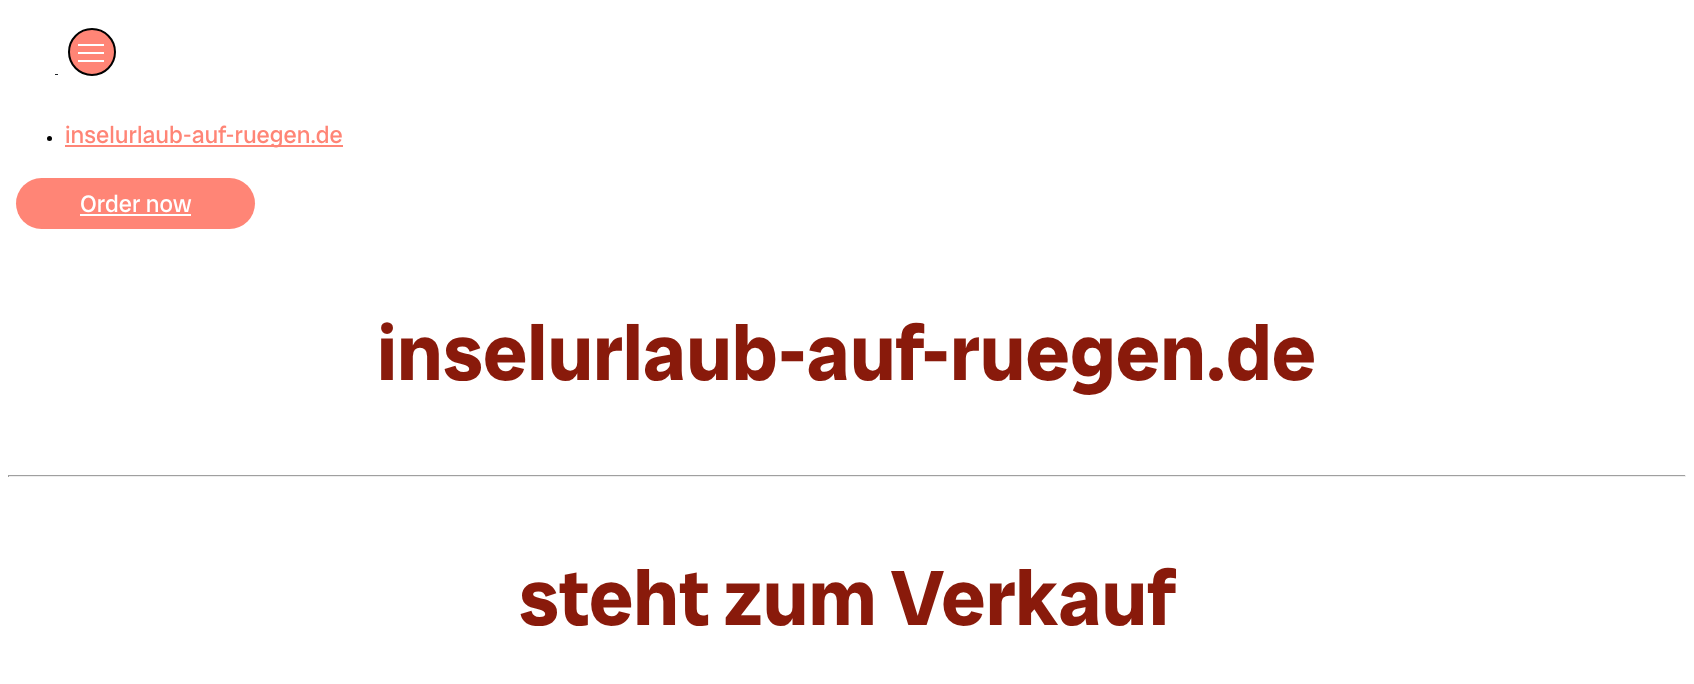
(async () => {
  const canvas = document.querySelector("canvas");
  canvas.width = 1694;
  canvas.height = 684;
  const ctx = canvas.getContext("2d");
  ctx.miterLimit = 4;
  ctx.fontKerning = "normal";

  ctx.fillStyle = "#ffffff";
  ctx.fillRect(0, 0, 1694, 684);
  ctx.fillStyle = "#212529";
  ctx.fillRect(55, 74, 3, 1);
  ctx.fillStyle = "#ff8576";
  ctx.beginPath();
  ctx.arc(92, 52, 23, 0, Math.PI * 2);
  ctx.fill();
  ctx.strokeStyle = "#000000";
  ctx.lineWidth = 2;
  ctx.stroke();
  for (const [x, y, w, h, color] of [
    [78, 44, 26, 2, "#ffffff"],
    [78, 52, 26, 2, "#ffffff"],
    [78, 60, 26, 2, "#ffffff"],
  ]) {
    ctx.fillStyle = color;
    ctx.fillRect(x, y, w, h);
  }
  ctx.fillStyle = "#000000";
  ctx.beginPath();
  ctx.arc(49.5, 138.5, 2.5, 0, Math.PI * 2);
  ctx.fill();
  ctx.fillStyle = "#ff8576";
  ctx.fillRect(65, 145, 278, 2);
  ctx.beginPath();
  ctx.roundRect(16, 178, 239, 51, 25.5);
  ctx.fill();
  for (const [x, y, w, h, color] of [
    [80, 214, 111, 2, "#ffffff"],
    [8, 475, 1678, 1, "#9f9f9f"],
    [1685, 475, 1, 2, "#eeeeee"],
    [8, 476, 1678, 1, "#eeeeee"],
    [8, 475, 1, 2, "#9f9f9f"],
  ]) {
    ctx.fillStyle = color;
    ctx.fillRect(x, y, w, h);
  }
  ctx.font = "24px Radio Canada Big";
  ctx.fillStyle = "#ff8576";
  ctx.fillText("inselurlaub-auf-ruegen.de", 65, 143);
  ctx.fillStyle = "#ffffff";
  ctx.fillText("Order now", 80, 212);
  ctx.font = "bold 78.4px Radio Canada Big";
  ctx.fillStyle = "#891a0b";
  ctx.fillText("inselurlaub-auf-ruegen.de", 377, 380);
  ctx.fillText("steht zum Verkauf", 519, 625);
})();
